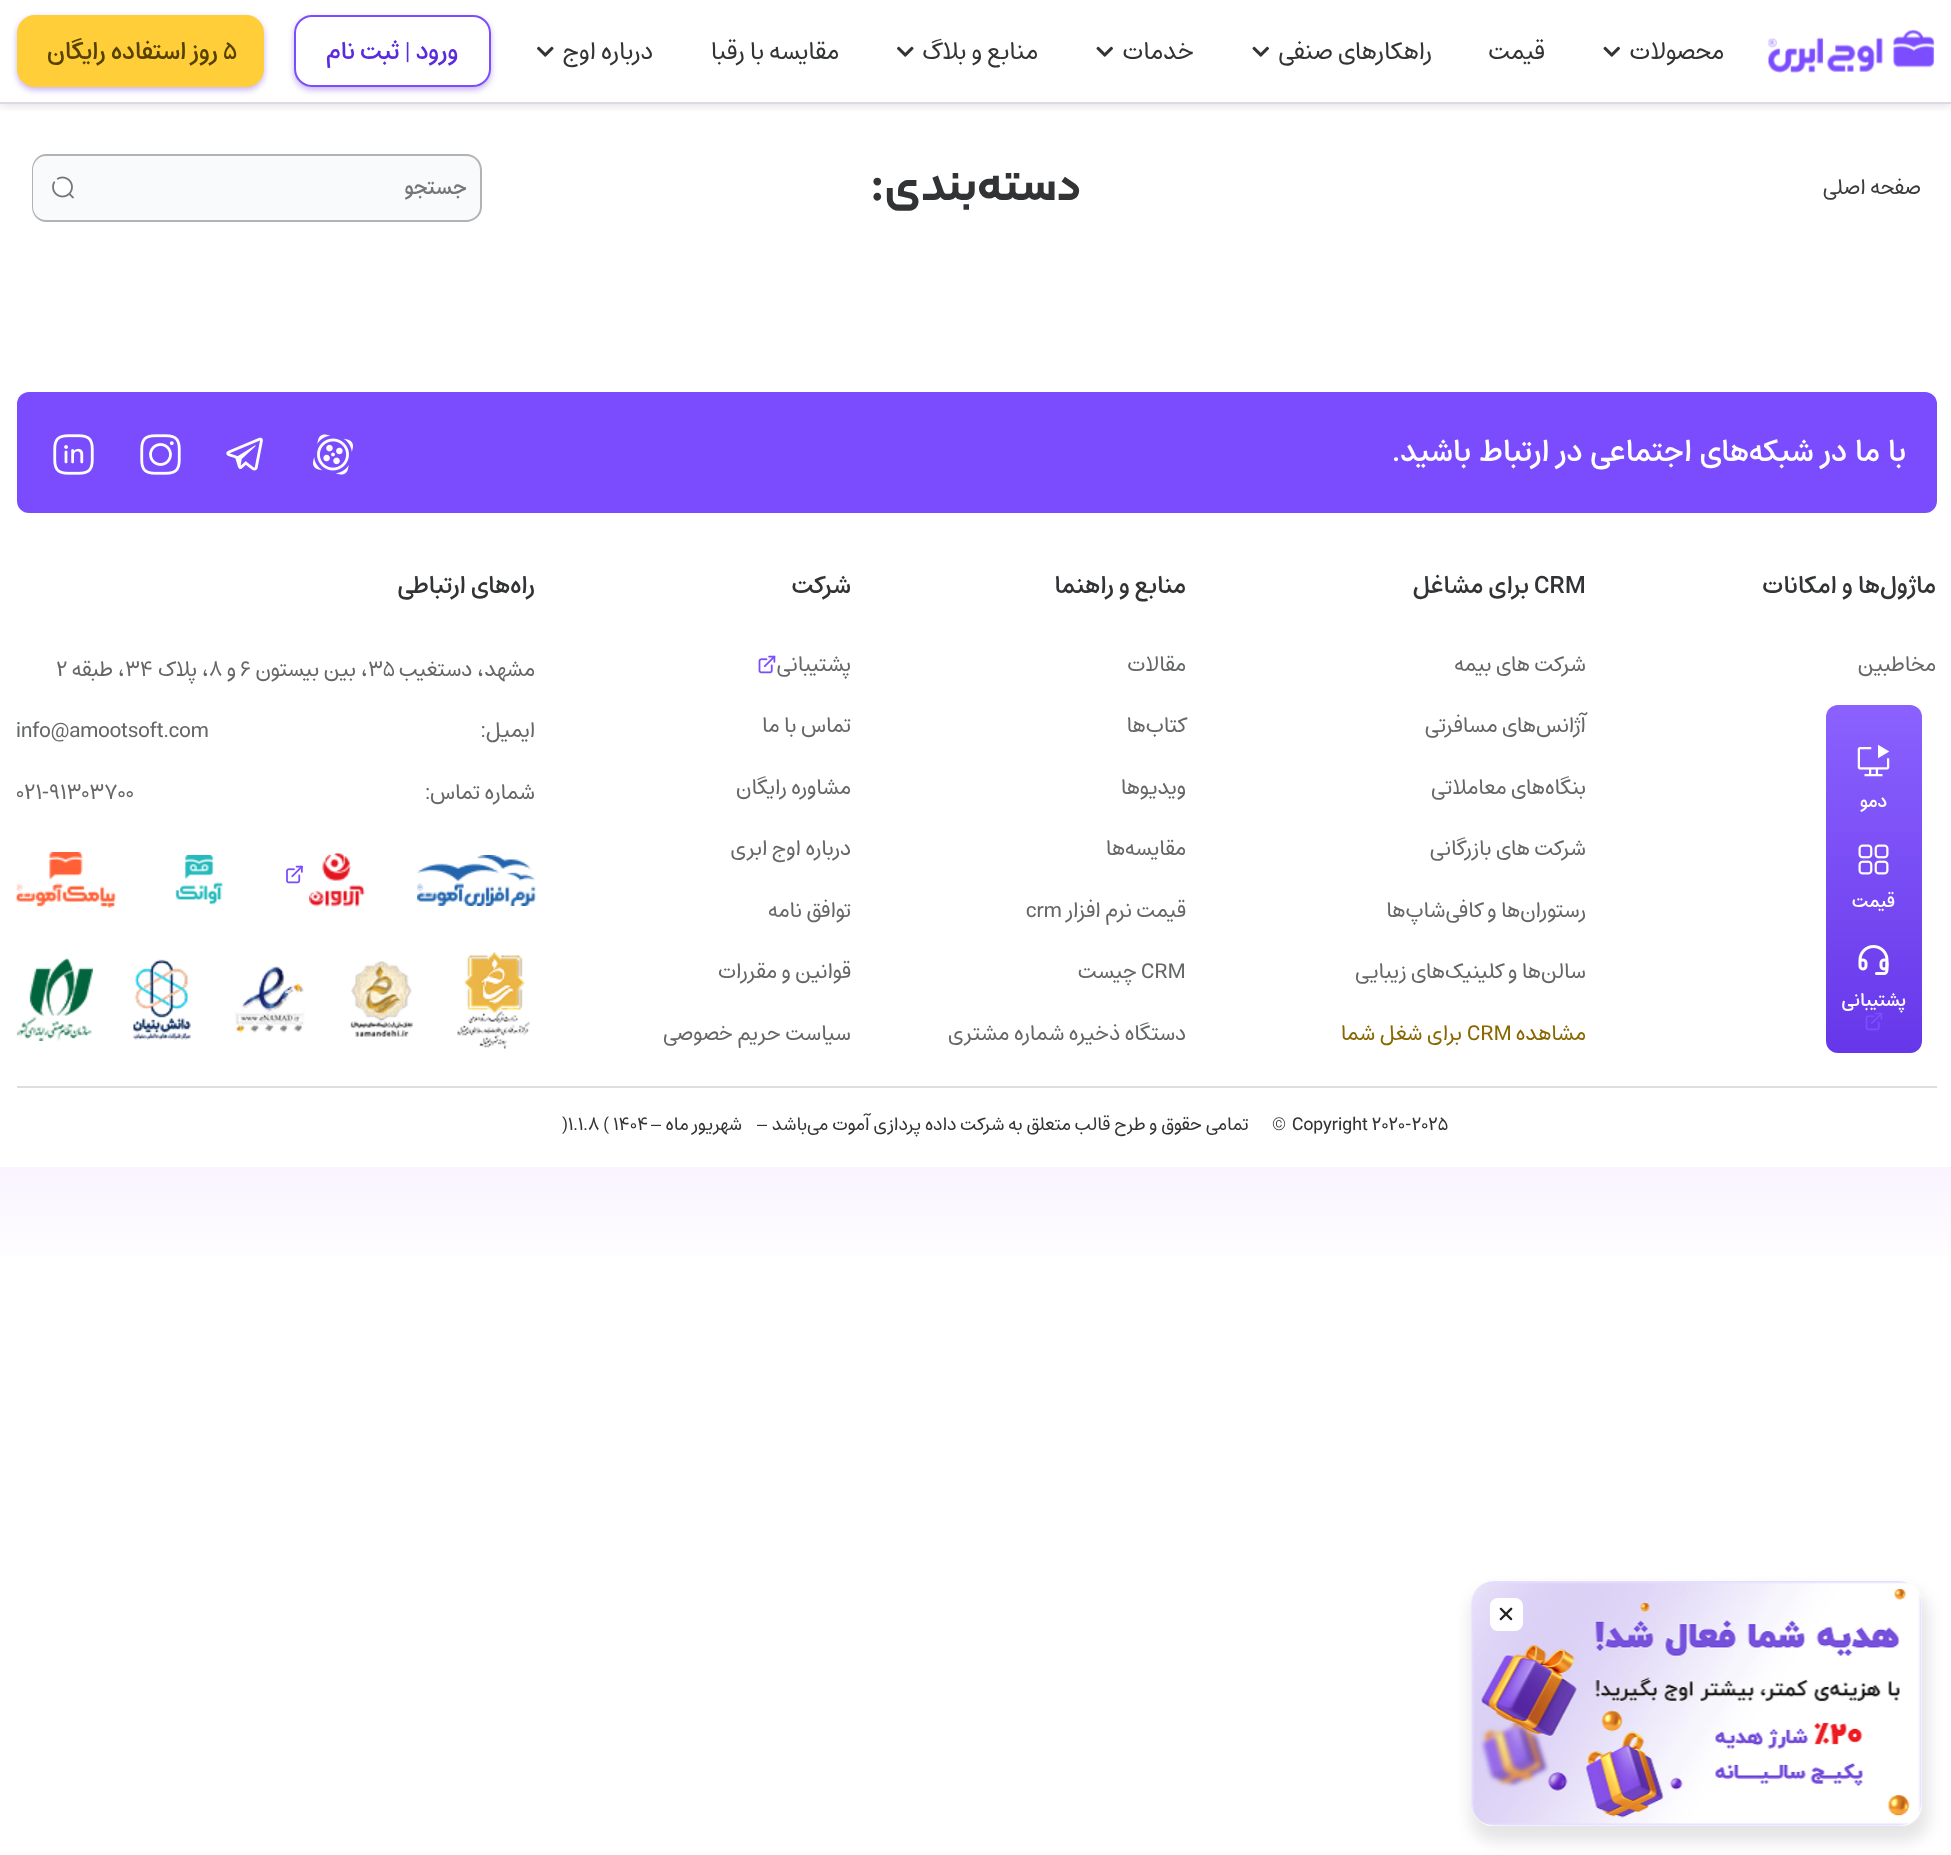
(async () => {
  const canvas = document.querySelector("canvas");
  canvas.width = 1951;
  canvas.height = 1855;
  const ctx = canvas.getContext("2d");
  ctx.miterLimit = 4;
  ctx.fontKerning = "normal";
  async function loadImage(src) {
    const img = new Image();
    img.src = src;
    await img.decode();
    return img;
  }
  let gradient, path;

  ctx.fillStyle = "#ffffff";
  ctx.fillRect(0, 0, 1951, 1855);
  gradient = ctx.createLinearGradient(976, 1167, 976, 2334);
  gradient.addColorStop(0, "#f9f4ff");
  gradient.addColorStop(0.1, "#ffffff");
  ctx.fillStyle = gradient;
  ctx.fillRect(0, 1167, 1951, 90);
  ctx.save();
  ctx.beginPath();
  ctx.rect(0, 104, 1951, 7);
  ctx.clip();
  ctx.fillStyle = "rgba(0, 0, 0, 0.16)";
  ctx.filter = "blur(6px)";
  ctx.beginPath();
  ctx.rect(0, 0, 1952, 104);
  ctx.fill();
  ctx.filter = "none";
  ctx.restore();
  ctx.fillStyle = "#dfd7e8";
  ctx.fillRect(0, 102, 1951, 2);
  ctx.drawImage(await loadImage("img/1.png"), 1768, 29, 167, 44);
  ctx.drawImage(await loadImage("img/2.png"), 1603, 46, 17, 11);
  ctx.drawImage(await loadImage("img/2.png"), 1252, 46, 17, 11);
  ctx.drawImage(await loadImage("img/2.png"), 1096, 46, 17, 11);
  ctx.drawImage(await loadImage("img/3.png"), 897, 46, 17, 11);
  ctx.drawImage(await loadImage("img/3.png"), 537, 46, 17, 11);
  ctx.save();
  path = new Path2D("M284 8H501V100H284ZM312 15H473C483 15 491 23 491 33V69C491 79 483 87 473 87H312C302 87 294 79 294 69V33C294 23 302 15 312 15Z");
  ctx.clip(path, "evenodd");
  ctx.fillStyle = "rgba(137, 98, 223, 0.48)";
  ctx.filter = "blur(3px)";
  ctx.beginPath();
  ctx.roundRect(294, 18, 197, 72, 18);
  ctx.fill();
  ctx.filter = "none";
  ctx.restore();
  ctx.fillStyle = "#7f51ff";
  path = new Path2D("M296 69C296 78.5 303.5 86 313 86C304 86 296 78 296 69Z");
  ctx.fill(path);
  ctx.beginPath();
  ctx.roundRect(295, 16, 195, 70, 17);
  ctx.strokeStyle = "#7c4dff";
  ctx.lineWidth = 2;
  ctx.stroke();
  ctx.fillStyle = "rgba(137, 98, 223, 0.48)";
  ctx.filter = "blur(3px)";
  ctx.beginPath();
  ctx.roundRect(17, 18, 247, 72, 18);
  ctx.fill();
  ctx.filter = "none";
  ctx.fillStyle = "#ffce39";
  ctx.beginPath();
  ctx.roundRect(18, 16, 245, 70, 17);
  ctx.fill();
  ctx.strokeStyle = "#ffce39";
  ctx.stroke();
  ctx.fillStyle = "#f9fafc";
  ctx.beginPath();
  ctx.roundRect(93, 156, 387, 65, [0, 14, 14, 0]);
  ctx.fill();
  ctx.fillStyle = "#b2b3b5";
  path = new Path2D("M93 154H466C475 154 482 161 482 170V207C482 215 475 222 466 222H93ZM93 156H466C474 156 480 162 480 170V207C480 214 474 220 466 220H93Z");
  ctx.fill(path, "evenodd");
  ctx.fillStyle = "#f9fafc";
  ctx.beginPath();
  ctx.roundRect(33, 156, 60, 65, [14, 0, 0, 14]);
  ctx.fill();
  ctx.fillStyle = "#b2b3b5";
  path = new Path2D("M46 154H93V222H46C38 222 32 215 32 207V170C32 161 38 154 46 154ZM46 156H93V220H46C39 220 33 214 33 207V170C33 162 39 156 46 156Z");
  ctx.fill(path, "evenodd");
  ctx.drawImage(await loadImage("img/4.png"), 52, 176, 22, 23);
  ctx.fillStyle = "#7b4cfe";
  ctx.beginPath();
  ctx.roundRect(17, 392, 1920, 121, 12);
  ctx.fill();
  ctx.drawImage(await loadImage("img/5.png"), 312, 434, 41, 41);
  ctx.drawImage(await loadImage("img/6.png"), 226, 437, 37, 34);
  ctx.drawImage(await loadImage("img/7.png"), 140, 434, 41, 41);
  ctx.drawImage(await loadImage("img/8.png"), 53, 434, 41, 41);
  ctx.drawImage(await loadImage("img/9.png"), 758, 655, 18, 19);
  ctx.drawImage(await loadImage("img/10.png"), 417, 855, 119, 51);
  ctx.drawImage(await loadImage("img/11.png"), 309, 853, 56, 54);
  ctx.drawImage(await loadImage("img/12.png"), 286, 865, 17, 19);
  ctx.drawImage(await loadImage("img/13.png"), 175, 855, 48, 50);
  ctx.drawImage(await loadImage("img/14.png"), 16, 852, 100, 56);
  ctx.drawImage(await loadImage("img/15.png"), 457, 952, 73, 97);
  ctx.drawImage(await loadImage("img/16.png"), 350, 961, 63, 77);
  ctx.drawImage(await loadImage("img/17.png"), 235, 966, 70, 67);
  ctx.drawImage(await loadImage("img/18.png"), 133, 959, 58, 81);
  ctx.drawImage(await loadImage("img/19.png"), 16, 958, 77, 83);
  ctx.fillStyle = "#dddee0";
  ctx.fillRect(17, 1086, 1920, 2);
  gradient = ctx.createLinearGradient(1874, 705, 1874, 1053);
  gradient.addColorStop(0, "#8b61ff");
  gradient.addColorStop(1, "#6637e9");
  ctx.fillStyle = gradient;
  ctx.beginPath();
  ctx.roundRect(1826, 705, 96, 348, 12);
  ctx.fill();
  ctx.drawImage(await loadImage("img/20.png"), 1857, 744, 33, 33);
  ctx.drawImage(await loadImage("img/21.png"), 1858, 844, 31, 31);
  ctx.drawImage(await loadImage("img/22.png"), 1858, 945, 31, 30);
  ctx.fillStyle = "rgba(0, 0, 0, 0.1)";
  ctx.filter = "blur(7.5px)";
  ctx.beginPath();
  ctx.roundRect(1470, 1589, 459, 253, 26);
  ctx.fill();
  ctx.filter = "none";
  ctx.fillStyle = "#ffffff";
  ctx.beginPath();
  ctx.roundRect(1472, 1581, 450, 245, 21);
  ctx.fill();
  ctx.drawImage(await loadImage("img/24.png"), 1471, 1581, 451, 245);
  ctx.beginPath();
  ctx.roundRect(1490, 1598, 33, 33, 8);
  ctx.fill();
  ctx.drawImage(await loadImage("img/25.png"), 1499, 1607, 14, 14);
  ctx.direction = "rtl";
  ctx.font = "24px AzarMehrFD";
  ctx.fillStyle = "#323335";
  for (const [text, x, y] of [
    ["محصولات", 1724, 59],
    ["قیمت", 1545, 59],
    ["راهکارهای صنفی", 1432, 59],
    ["خدمات", 1194, 59],
    ["منابع و بلاگ", 1038, 59],
    ["مقایسه با رقبا", 839, 59],
    ["درباره اوج", 653, 59],
  ]) {
    ctx.fillText(text, x, y);
  }
  ctx.font = "500 24px AzarMehrFD";
  ctx.fillStyle = "#5a2bdd";
  ctx.fillText("ورود | ثبت نام", 458, 59);
  ctx.direction = "ltr";
  ctx.fillStyle = "#564100";
  ctx.fillText("5", 223, 59);
  ctx.direction = "rtl";
  ctx.fillText("روز استفاده رایگان", 218, 59);
  ctx.font = "21px AzarMehrFD";
  ctx.fillStyle = "#3a3a3a";
  ctx.fillText("صفحه اصلی", 1921, 194);
  ctx.font = "600 48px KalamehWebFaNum";
  ctx.fillStyle = "#323335";
  ctx.fillText("دسته‌بندی:", 1081, 200);
  ctx.font = "500 21px AzarMehrFD";
  ctx.fillStyle = "#757575";
  ctx.fillText("جستجو", 467, 194);
  ctx.wordSpacing = "1.5px";
  ctx.font = "500 30px AzarMehrFD";
  ctx.fillStyle = "#ffffff";
  ctx.fillText("با ما در شبکه‌های اجتماعی در ارتباط باشید.", 1906, 461);
  ctx.wordSpacing = "0px";
  ctx.font = "500 24px AzarMehrFD";
  ctx.fillStyle = "#323335";
  ctx.fillText("ماژول‌ها و امکانات", 1936, 593);
  ctx.font = "21px AzarMehrFD";
  ctx.fillStyle = "#656668";
  ctx.fillText("مخاطبین", 1936, 671);
  ctx.direction = "ltr";
  ctx.font = "500 24px AzarMehrFD";
  ctx.fillStyle = "#323335";
  ctx.fillText("CRM", 1534, 593);
  ctx.direction = "rtl";
  ctx.fillText("برای مشاغل", 1529, 593);
  ctx.font = "21px AzarMehrFD";
  ctx.fillStyle = "#656668";
  for (const [text, x, y] of [
    ["شرکت های بیمه", 1586, 671],
    ["آژانس‌های مسافرتی", 1586, 732],
    ["بنگاه‌های معاملاتی", 1586, 794],
    ["شرکت های بازرگانی", 1586, 855],
    ["رستوران‌ها و کافی‌شاپ‌ها", 1586, 917],
    ["سالن‌ها و کلینیک‌های زیبایی", 1586, 978],
  ]) {
    ctx.fillText(text, x, y);
  }
  ctx.fillStyle = "#896700";
  ctx.fillText("مشاهده", 1586, 1040);
  ctx.direction = "ltr";
  ctx.fillText("CRM", 1467, 1040);
  ctx.direction = "rtl";
  ctx.fillText("برای شغل شما", 1462, 1040);
  ctx.font = "500 24px AzarMehrFD";
  ctx.fillStyle = "#323335";
  ctx.fillText("منابع و راهنما", 1186, 593);
  ctx.font = "21px AzarMehrFD";
  ctx.fillStyle = "#656668";
  for (const [text, x, y] of [
    ["مقالات", 1186, 671],
    ["کتاب‌ها", 1186, 732],
    ["ویدیوها", 1186, 794],
    ["مقایسه‌ها", 1186, 855],
    ["قیمت نرم افزار", 1186, 917],
  ]) {
    ctx.fillText(text, x, y);
  }
  ctx.direction = "ltr";
  ctx.fillText("crm", 1026, 917);
  ctx.fillText("CRM", 1141, 978);
  ctx.direction = "rtl";
  ctx.fillText("چیست", 1137, 978);
  ctx.fillText("دستگاه ذخیره شماره مشتری", 1186, 1040);
  ctx.font = "500 24px AzarMehrFD";
  ctx.fillStyle = "#323335";
  ctx.fillText("شرکت", 851, 593);
  ctx.font = "21px AzarMehrFD";
  ctx.fillStyle = "#656668";
  for (const [text, x, y] of [
    ["پشتیبانی", 851, 671],
    ["تماس با ما", 851, 732],
    ["مشاوره رایگان", 851, 794],
    ["درباره اوج ابری", 851, 855],
    ["توافق نامه", 851, 917],
    ["قوانین و مقررات", 851, 978],
    ["سیاست حریم خصوصی", 851, 1040],
  ]) {
    ctx.fillText(text, x, y);
  }
  ctx.font = "500 24px AzarMehrFD";
  ctx.fillStyle = "#323335";
  ctx.fillText("راه‌های ارتباطی", 535, 593);
  ctx.font = "21px AzarMehrFD";
  ctx.fillStyle = "#656668";
  ctx.fillText("مشهد، دستغیب", 535, 676);
  ctx.direction = "ltr";
  ctx.fillText("35", 368, 676);
  ctx.direction = "rtl";
  ctx.fillText("، بین بیستون", 368, 676);
  ctx.direction = "ltr";
  ctx.fillText("6", 240, 676);
  ctx.direction = "rtl";
  ctx.fillText("و", 236, 676);
  ctx.direction = "ltr";
  ctx.fillText("8", 209, 676);
  ctx.direction = "rtl";
  ctx.fillText("، پلاک", 209, 676);
  ctx.direction = "ltr";
  ctx.fillText("34", 125, 676);
  ctx.direction = "rtl";
  ctx.fillText("، طبقه", 125, 676);
  ctx.direction = "ltr";
  ctx.fillText("2", 56, 676);
  ctx.direction = "rtl";
  ctx.fillText("ایمیل:", 535, 737);
  ctx.direction = "ltr";
  ctx.fillText("info@amootsoft.com", 16, 737);
  ctx.direction = "rtl";
  ctx.fillText("شماره تماس:", 535, 799);
  ctx.direction = "ltr";
  ctx.fillText("021-91303700", 16, 799);
  ctx.direction = "rtl";
  ctx.font = "18px AzarMehrFD";
  ctx.fillStyle = "#323335";
  ctx.fillText("©      تمامی حقوق و طرح قالب متعلق به شرکت داده پردازی آموت می‌باشد", 1286, 1130);
  ctx.direction = "ltr";
  ctx.fillText("Copyright 2020-2025", 1292, 1130);
  ctx.direction = "rtl";
  ctx.font = "18px Liberation Sans";
  ctx.fillText("–", 767, 1130);
  ctx.font = "18px AzarMehrFD";
  ctx.fillText("شهریور ماه", 742, 1130);
  ctx.font = "18px Liberation Sans";
  ctx.fillText("–", 661, 1130);
  ctx.direction = "ltr";
  ctx.font = "18px AzarMehrFD";
  ctx.fillText(")1.1.8 ( 1404", 562, 1130);
  ctx.direction = "rtl";
  ctx.font = "500 18px AzarMehrFD";
  ctx.fillStyle = "#ffffff";
  for (const [text, x, y] of [
    ["دمو", 1887, 807],
    ["قیمت", 1895, 907],
    ["پشتیبانی", 1906, 1006],
  ]) {
    ctx.fillText(text, x, y);
  }
  ctx.drawImage(await loadImage("img/23.png"), 1865, 1012, 18, 19);
})();
